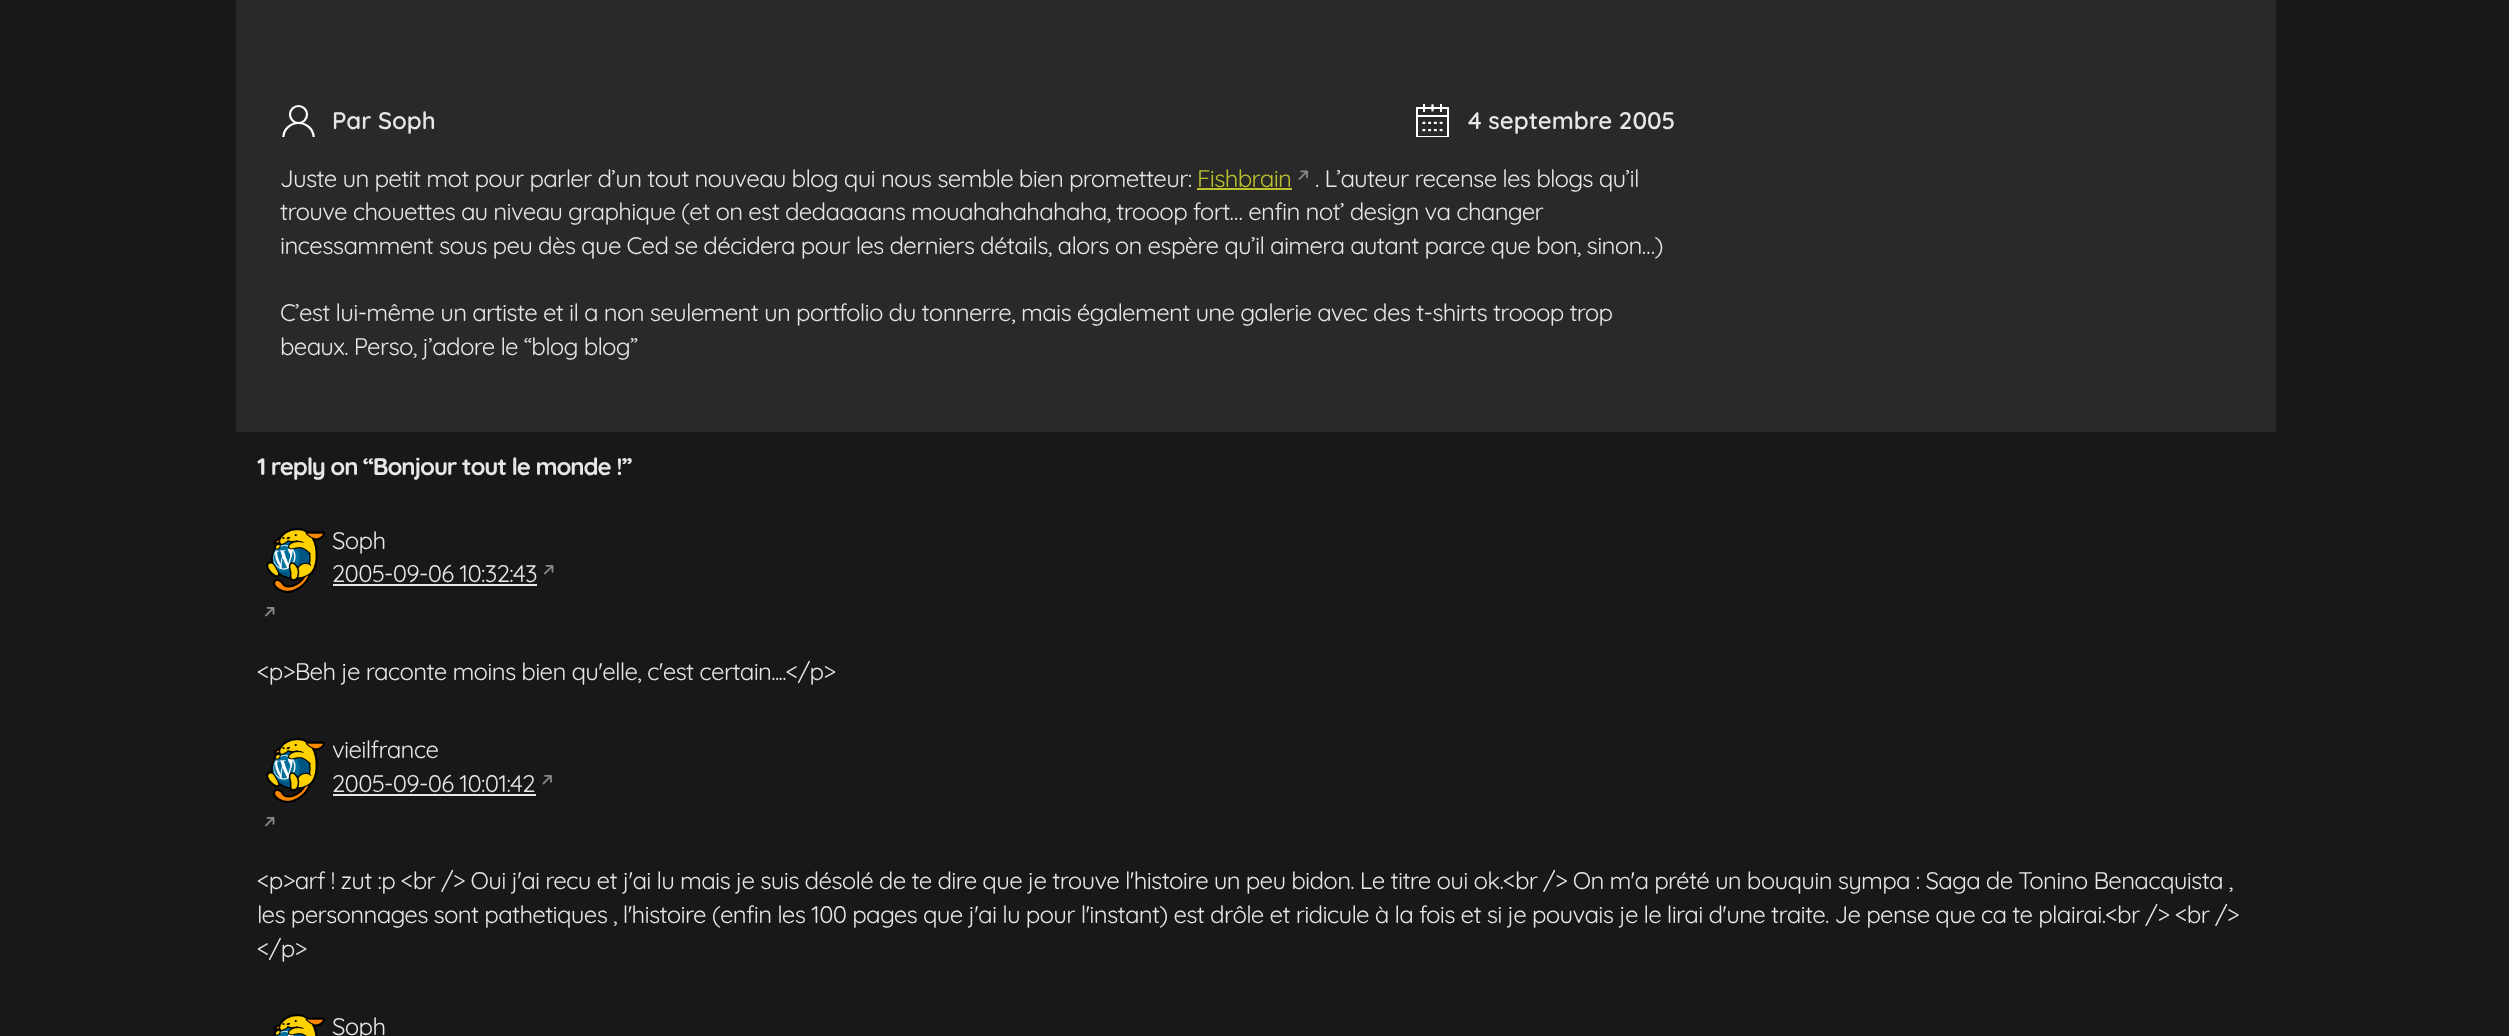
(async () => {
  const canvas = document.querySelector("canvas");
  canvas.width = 2509;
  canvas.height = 1036;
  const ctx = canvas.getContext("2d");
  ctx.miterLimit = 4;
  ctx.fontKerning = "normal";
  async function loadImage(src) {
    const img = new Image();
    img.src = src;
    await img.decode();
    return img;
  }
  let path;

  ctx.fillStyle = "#181818";
  ctx.fillRect(0, 0, 2509, 1036);
  ctx.fillStyle = "#292929";
  ctx.fillRect(236, 0, 2040, 432);
  ctx.beginPath();
  ctx.arc(298.5, 114.5, 8.5, 0, Math.PI * 2);
  ctx.strokeStyle = "#ffffff";
  ctx.lineWidth = 2.2;
  ctx.stroke();
  ctx.save();
  ctx.beginPath();
  ctx.rect(281, 104, 36, 33);
  ctx.clip();
  path = new Path2D("M283 138.5L283.5 135.5C284.5 128.5 291 123 298.5 123C306 123 312.5 128.5 313.5 135.5L314 139");
  ctx.stroke(path);
  ctx.restore();
  ctx.drawImage(await loadImage("img/1.png"), 1416, 104, 33, 33);
  ctx.fillStyle = "#bec32d";
  ctx.fillRect(1197, 188, 95, 2);
  ctx.drawImage(await loadImage("img/2.png"), 1298, 170, 10, 10);
  ctx.drawImage(await loadImage("img/3.png"), 266, 528, 59, 65);
  ctx.drawImage(await loadImage("img/4.png"), 265, 607, 10, 10);
  ctx.fillStyle = "#e7e7e7";
  ctx.fillRect(333, 584, 204, 2);
  ctx.drawImage(await loadImage("img/4.png"), 544, 565, 10, 10);
  ctx.drawImage(await loadImage("img/5.png"), 266, 738, 59, 65);
  ctx.drawImage(await loadImage("img/4.png"), 265, 817, 10, 10);
  ctx.fillRect(333, 794, 203, 2);
  ctx.drawImage(await loadImage("img/6.png"), 542, 775, 10, 10);
  ctx.drawImage(await loadImage("img/7.png"), 273, 1014, 52, 22);
  ctx.font = "600 24px Quicksand";
  ctx.fillText("Par Soph", 332, 129);
  ctx.fillText("4 septembre 2005", 1468, 129);
  ctx.letterSpacing = "-0.71px";
  ctx.font = "24px Quicksand";
  ctx.fillText("Juste un petit mot pour parler d’un tout nouveau blog qui nous semble bien prometteur:", 280, 187);
  ctx.fillStyle = "#bec32d";
  ctx.fillText("Fishbrain", 1197, 187);
  ctx.fillStyle = "#e7e7e7";
  for (const [text, x, y] of [
    [". L’auteur recense les blogs qu’il", 1315, 187],
    ["trouve chouettes au niveau graphique (et on est dedaaaans mouahahahahaha, trooop fort… enfin not’ design va changer", 280, 220],
    ["incessamment sous peu dès que Ced se décidera pour les derniers détails, alors on espère qu’il aimera autant parce que bon, sinon…)", 280, 254],
    ["C’est lui-même un artiste et il a non seulement un portfolio du tonnerre, mais également une galerie avec des t-shirts trooop trop", 280, 321],
    ["beaux. Perso, j’adore le “blog blog”", 280, 355],
  ]) {
    ctx.fillText(text, x, y);
  }
  ctx.letterSpacing = "-1.1px";
  ctx.font = "bold 24px Quicksand";
  ctx.fillText("1 reply on “Bonjour tout le monde !”", 257, 475);
  ctx.letterSpacing = "-0.71px";
  ctx.font = "24px Quicksand";
  for (const [text, x, y] of [
    ["Soph", 332, 549],
    ["2005-09-06 10:32:43", 332, 582],
    ["<p>Beh je raconte moins bien qu'elle, c'est certain....<\/p>", 257, 680],
    ["vieilfrance", 332, 758],
    ["2005-09-06 10:01:42", 332, 792],
    ["<p>arf ! zut :p <br /> Oui j'ai recu et j'ai lu mais je suis désolé de te dire que je trouve l'histoire un peu bidon. Le titre oui ok.<br /> On m'a prété un bouquin sympa : Saga de Tonino Benacquista ,", 257, 889],
    ["les personnages sont pathetiques , l'histoire (enfin les 100 pages que j'ai lu pour l'instant) est drôle et ridicule à la fois et si je pouvais je le lirai d'une traite. Je pense que ca te plairai.<br /> <br />", 257, 923],
    ["<\/p>", 257, 957],
    ["Soph", 332, 1035],
  ]) {
    ctx.fillText(text, x, y);
  }
})();
